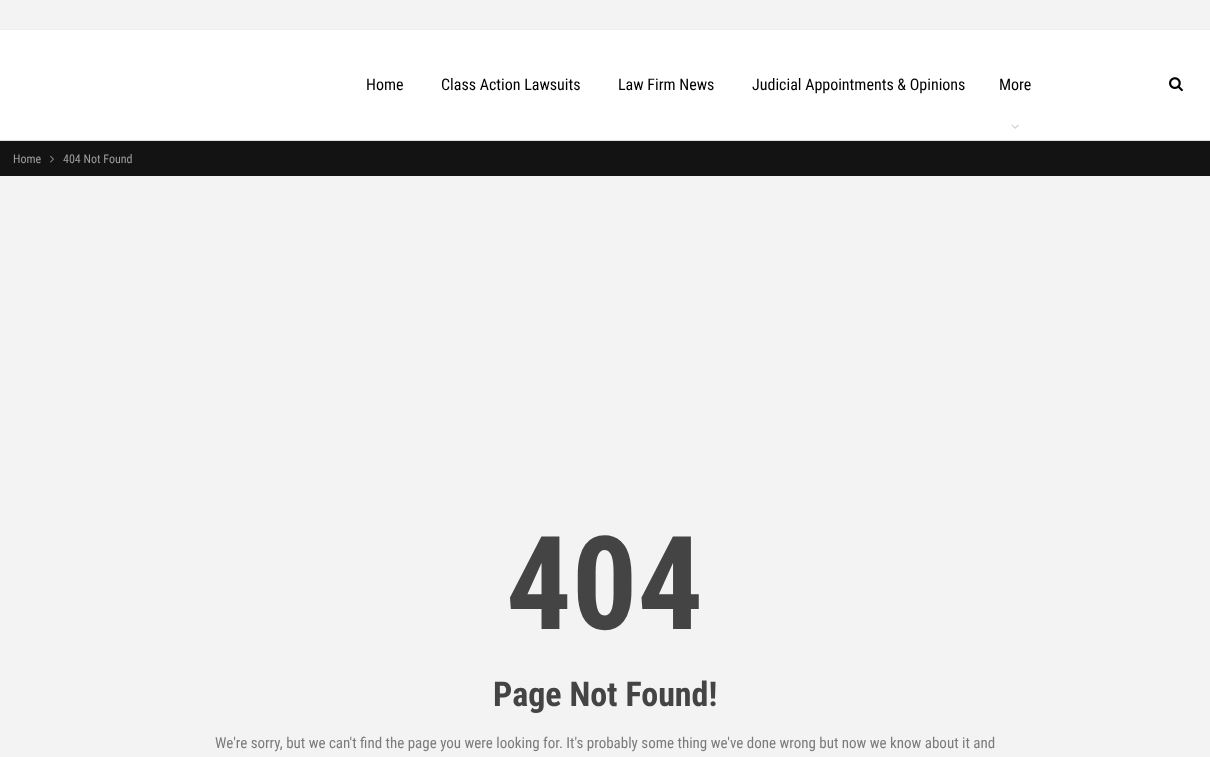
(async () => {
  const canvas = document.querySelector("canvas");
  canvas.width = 1210;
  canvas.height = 757;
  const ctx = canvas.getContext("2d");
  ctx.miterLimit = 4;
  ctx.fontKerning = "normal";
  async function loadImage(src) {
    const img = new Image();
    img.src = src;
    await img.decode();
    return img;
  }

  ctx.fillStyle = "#f3f3f3";
  ctx.fillRect(0, 0, 1210, 757);
  for (const [x, y, w, h, color] of [
    [0, 30, 1210, 110, "#ffffff"],
    [0, 140, 1210, 1, "#dedede"],
    [0, 29, 1210, 1, "#efefef"],
  ]) {
    ctx.fillStyle = color;
    ctx.fillRect(x, y, w, h);
  }
  ctx.drawImage(await loadImage("img/1.png"), 1011, 124, 8, 5);
  ctx.drawImage(await loadImage("img/2.png"), 1169, 77, 14, 15);
  ctx.fillStyle = "#131313";
  ctx.fillRect(0, 141, 1210, 35);
  ctx.drawImage(await loadImage("img/3.png"), 50, 155, 4, 8);
  ctx.font = "16px Roboto Condensed";
  ctx.fillStyle = "#000000";
  for (const [text, x, y] of [
    ["Home", 366, 90],
    ["Class Action Lawsuits", 441, 90],
    ["Law Firm News", 618, 90],
    ["Judicial Appointments & Opinions", 752, 90],
    ["More", 999, 90],
  ]) {
    ctx.fillText(text, x, y);
  }
  ctx.font = "12px Roboto Condensed";
  ctx.fillStyle = "#9e9e9e";
  ctx.fillText("Home", 13, 163);
  ctx.fillText("404 Not Found", 63, 163);
  ctx.font = "bold 130px Roboto Condensed";
  ctx.fillStyle = "#444444";
  ctx.fillText("404", 506, 629);
  ctx.font = "bold 34px Roboto Condensed";
  ctx.fillText("Page Not Found!", 493, 706);
  ctx.font = "15px Roboto Condensed";
  ctx.fillStyle = "#7b7b7b";
  ctx.fillText("We're sorry, but we can't find the page you were looking for. It's probably some thing we've done wrong but now we know about it and", 215, 748);
})();
